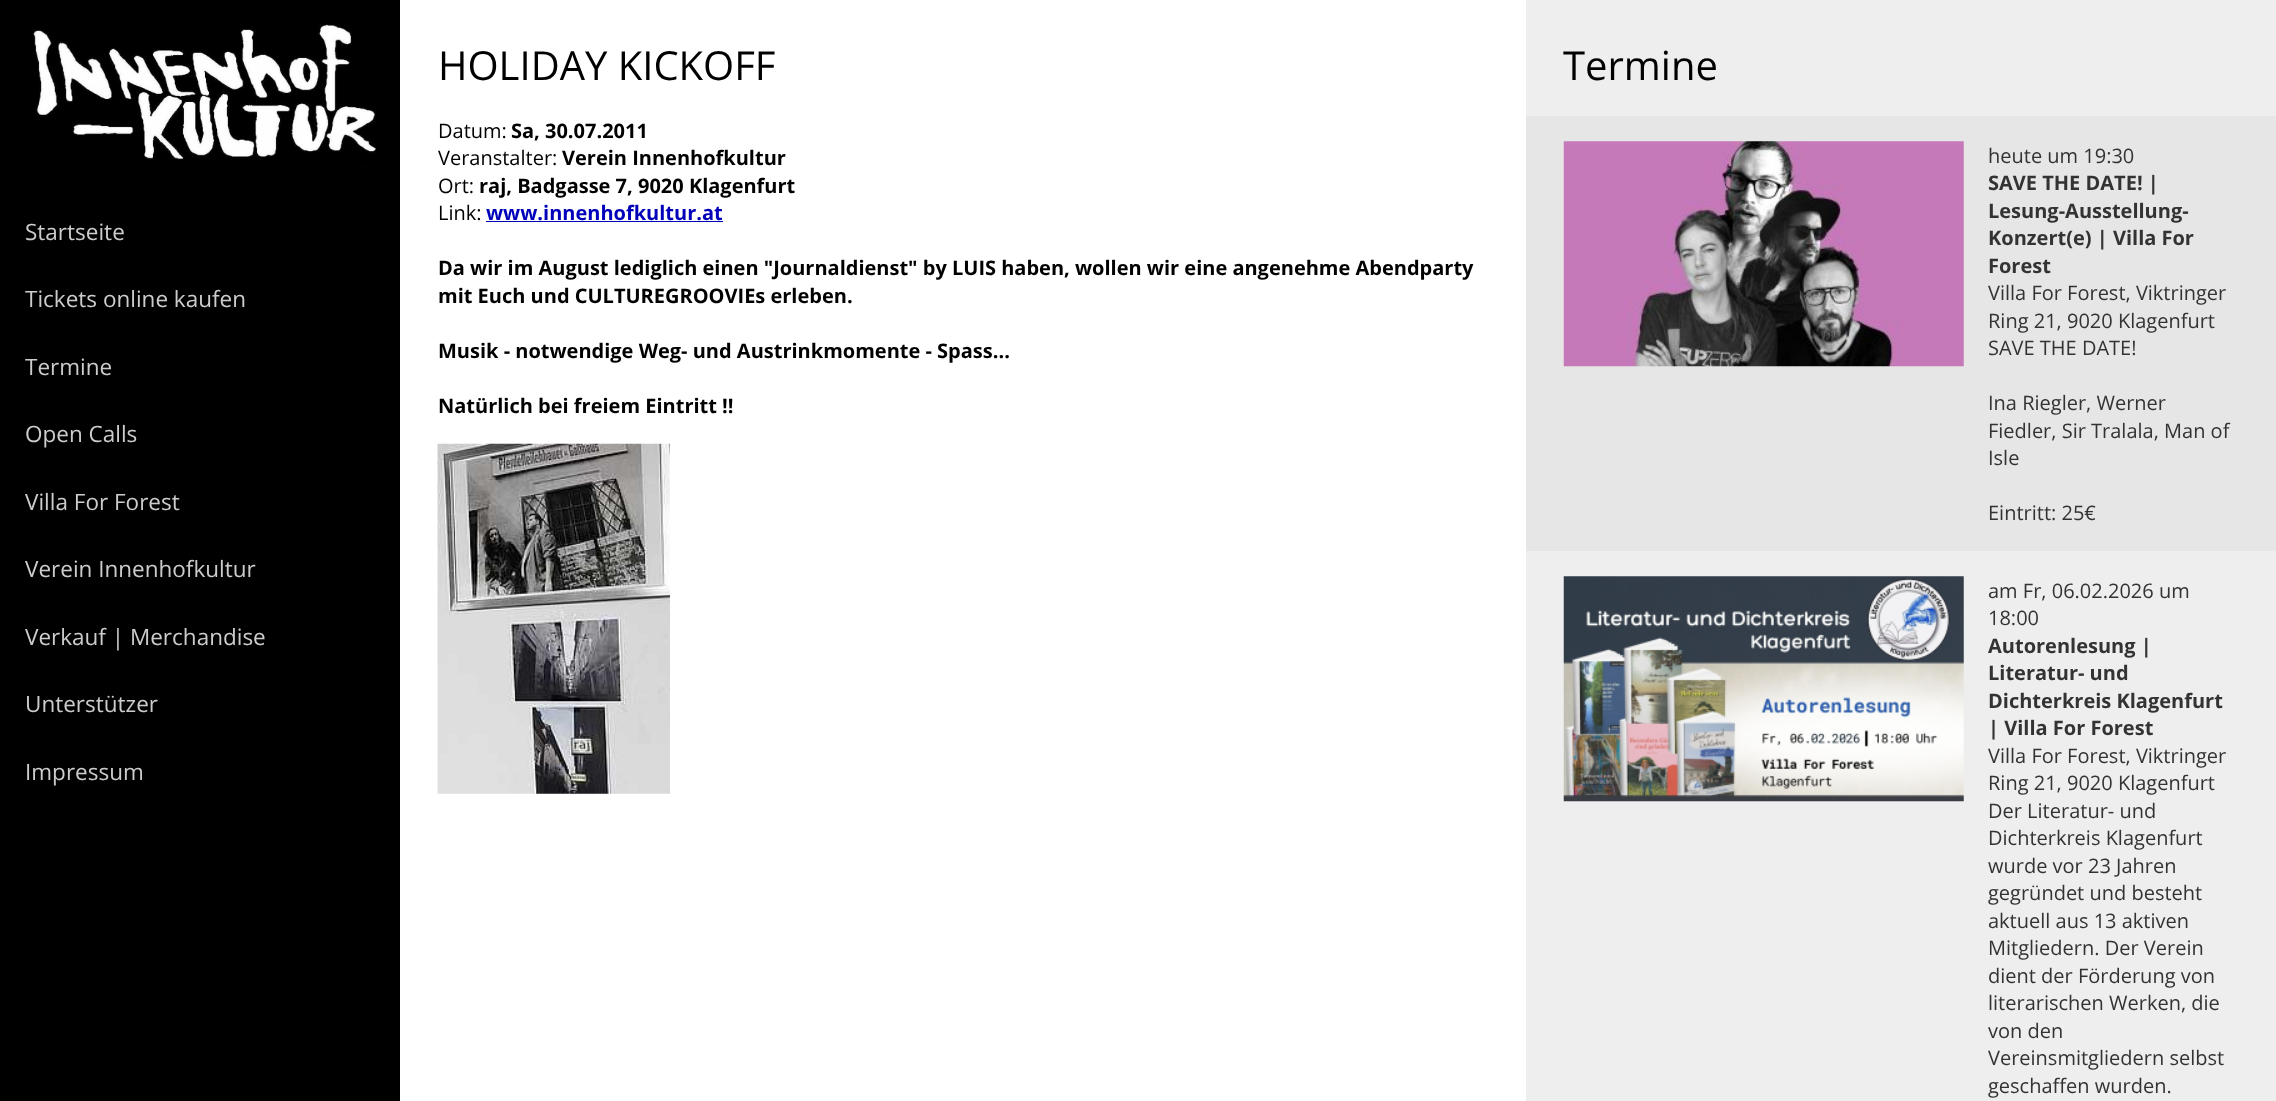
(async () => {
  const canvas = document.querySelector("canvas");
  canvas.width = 2276;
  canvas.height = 1101;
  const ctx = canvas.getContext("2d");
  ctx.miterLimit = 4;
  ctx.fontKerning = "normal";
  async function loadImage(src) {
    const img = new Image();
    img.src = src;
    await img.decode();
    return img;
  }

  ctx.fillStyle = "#000000";
  ctx.fillRect(0, 0, 2276, 1101);
  ctx.drawImage(await loadImage("img/1.png"), 32, 24, 344, 145);
  for (const [x, y, w, h, color] of [
    [1526, 0, 750, 1101, "#eeeeee"],
    [400, 0, 1126, 1101, "#ffffff"],
    [486, 221, 237, 1, "#0000bb"],
  ]) {
    ctx.fillStyle = color;
    ctx.fillRect(x, y, w, h);
  }
  ctx.drawImage(await loadImage("img/2.png"), 437, 443, 233, 351);
  ctx.fillStyle = "#e6e6e6";
  ctx.fillRect(1526, 116, 750, 435);
  ctx.drawImage(await loadImage("img/3.png"), 1563, 141, 401, 226);
  ctx.drawImage(await loadImage("img/4.png"), 1563, 576, 401, 226);
  ctx.font = "22.5px Open Sans";
  ctx.fillStyle = "#cccccc";
  for (const [text, x, y] of [
    ["Startseite", 25, 240],
    ["Tickets online kaufen", 25, 307],
    ["Termine", 25, 375],
    ["Open Calls", 25, 442],
    ["Villa For Forest", 25, 510],
    ["Verein Innenhofkultur", 25, 577],
    ["Verkauf | Merchandise", 25, 645],
    ["Unterstützer", 25, 712],
    ["Impressum", 25, 780],
  ]) {
    ctx.fillText(text, x, y);
  }
  ctx.font = "40px Open Sans";
  ctx.fillStyle = "#000000";
  ctx.fillText("HOLIDAY KICKOFF", 438, 80);
  ctx.font = "20px Open Sans";
  ctx.fillText("Datum:", 438, 138);
  ctx.font = "bold 20px Open Sans";
  ctx.fillText("Sa, 30.07.2011", 511, 138);
  ctx.font = "20px Open Sans";
  ctx.fillText("Veranstalter:", 438, 165);
  ctx.font = "bold 20px Open Sans";
  ctx.fillText("Verein Innenhofkultur", 562, 165);
  ctx.font = "20px Open Sans";
  ctx.fillText("Ort:", 438, 193);
  ctx.font = "bold 20px Open Sans";
  ctx.fillText("raj, Badgasse 7, 9020 Klagenfurt", 479, 193);
  ctx.font = "20px Open Sans";
  ctx.fillText("Link:", 438, 220);
  ctx.font = "bold 20px Open Sans";
  ctx.fillStyle = "#0000bb";
  ctx.fillText("www.innenhofkultur.at", 486, 220);
  ctx.fillStyle = "#000000";
  for (const [text, x, y] of [
    ["Da wir im August lediglich einen \"Journaldienst\" by LUIS haben, wollen wir eine angenehme Abendparty", 438, 275],
    ["mit Euch und CULTUREGROOVIEs erleben.", 438, 303],
    ["Musik - notwendige Weg- und Austrinkmomente - Spass...", 438, 358],
    ["Natürlich bei freiem Eintritt !!", 438, 413],
  ]) {
    ctx.fillText(text, x, y);
  }
  ctx.font = "40px Open Sans";
  ctx.fillText("Termine", 1563, 80);
  ctx.font = "20px Open Sans";
  ctx.fillStyle = "#333333";
  ctx.fillText("heute um 19:30", 1988, 163);
  ctx.font = "bold 20px Open Sans";
  for (const [text, x, y] of [
    ["SAVE THE DATE! |", 1988, 190],
    ["Lesung-Ausstellung-", 1988, 218],
    ["Konzert(e) | Villa For", 1988, 245],
    ["Forest", 1988, 273],
  ]) {
    ctx.fillText(text, x, y);
  }
  ctx.font = "20px Open Sans";
  for (const [text, x, y] of [
    ["Villa For Forest, Viktringer", 1988, 300],
    ["Ring 21, 9020 Klagenfurt", 1988, 328],
    ["SAVE THE DATE!", 1988, 355],
    ["Ina Riegler, Werner", 1988, 410],
    ["Fiedler, Sir Tralala, Man of", 1988, 438],
    ["Isle", 1988, 465],
    ["Eintritt: 25€", 1988, 520],
    ["am Fr, 06.02.2026 um", 1988, 598],
    ["18:00", 1988, 625],
  ]) {
    ctx.fillText(text, x, y);
  }
  ctx.font = "bold 20px Open Sans";
  for (const [text, x, y] of [
    ["Autorenlesung |", 1988, 653],
    ["Literatur- und", 1988, 680],
    ["Dichterkreis Klagenfurt", 1988, 708],
    ["| Villa For Forest", 1988, 735],
  ]) {
    ctx.fillText(text, x, y);
  }
  ctx.font = "20px Open Sans";
  for (const [text, x, y] of [
    ["Villa For Forest, Viktringer", 1988, 763],
    ["Ring 21, 9020 Klagenfurt", 1988, 790],
    ["Der Literatur- und", 1988, 818],
    ["Dichterkreis Klagenfurt", 1988, 845],
    ["wurde vor 23 Jahren", 1988, 873],
    ["gegründet und besteht", 1988, 900],
    ["aktuell aus 13 aktiven", 1988, 928],
    ["Mitgliedern. Der Verein", 1988, 955],
    ["dient der Förderung von", 1988, 983],
    ["literarischen Werken, die", 1988, 1010],
    ["von den", 1988, 1038],
    ["Vereinsmitgliedern selbst", 1988, 1065],
    ["geschaffen wurden.", 1988, 1093],
  ]) {
    ctx.fillText(text, x, y);
  }
})();
